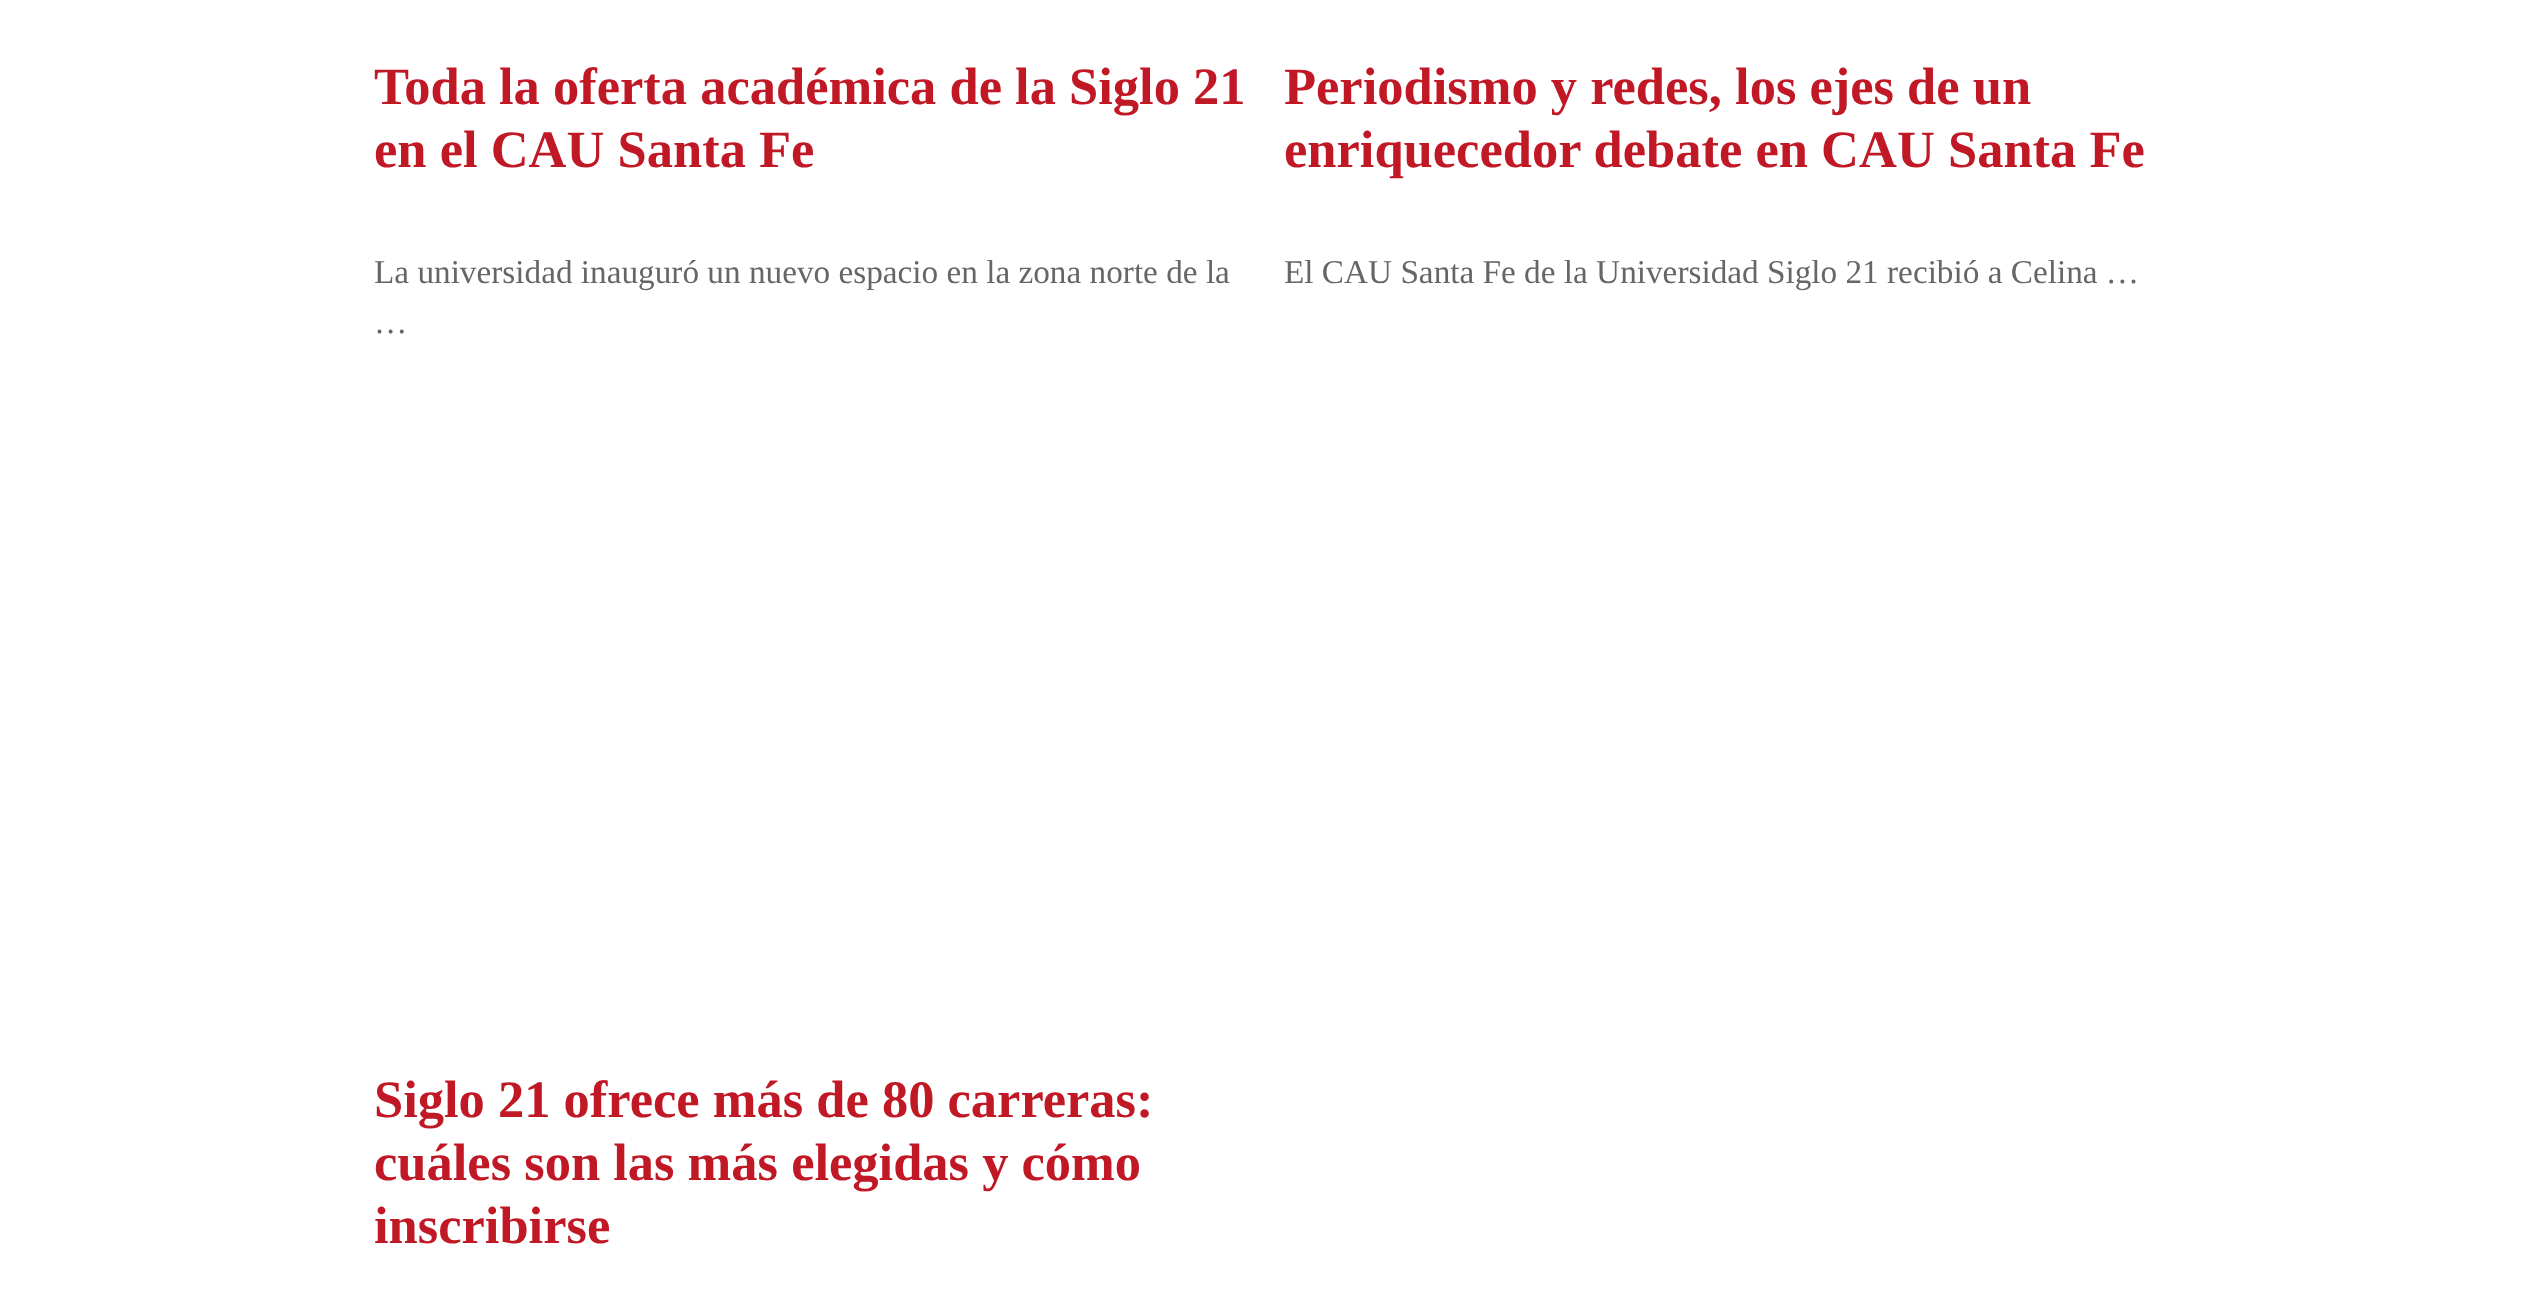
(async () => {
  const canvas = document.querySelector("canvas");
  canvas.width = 2532;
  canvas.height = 1298;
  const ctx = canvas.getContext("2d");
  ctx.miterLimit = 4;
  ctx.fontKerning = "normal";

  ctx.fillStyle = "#ffffff";
  ctx.fillRect(0, 0, 2532, 1298);
  ctx.font = "bold 52.5px Liberation Serif";
  ctx.fillStyle = "#c11826";
  ctx.fillText("Toda la oferta académica de la Siglo 21", 374, 104);
  ctx.fillText("en el CAU Santa Fe", 374, 167);
  ctx.font = "33.25px Liberation Serif";
  ctx.fillStyle = "#666666";
  ctx.fillText("La universidad inauguró un nuevo espacio en la zona norte de la", 374, 283);
  ctx.fillText("…", 374, 333);
  ctx.font = "bold 52.5px Liberation Serif";
  ctx.fillStyle = "#c11826";
  ctx.fillText("Periodismo y redes, los ejes de un", 1284, 104);
  ctx.fillText("enriquecedor debate en CAU Santa Fe", 1284, 167);
  ctx.font = "33.25px Liberation Serif";
  ctx.fillStyle = "#666666";
  ctx.fillText("El CAU Santa Fe de la Universidad Siglo 21 recibió a Celina …", 1284, 283);
  ctx.font = "bold 52.5px Liberation Serif";
  ctx.fillStyle = "#c11826";
  for (const [text, x, y] of [
    ["Siglo 21 ofrece más de 80 carreras:", 374, 1117],
    ["cuáles son las más elegidas y cómo", 374, 1180],
    ["inscribirse", 374, 1243],
  ]) {
    ctx.fillText(text, x, y);
  }
})();
